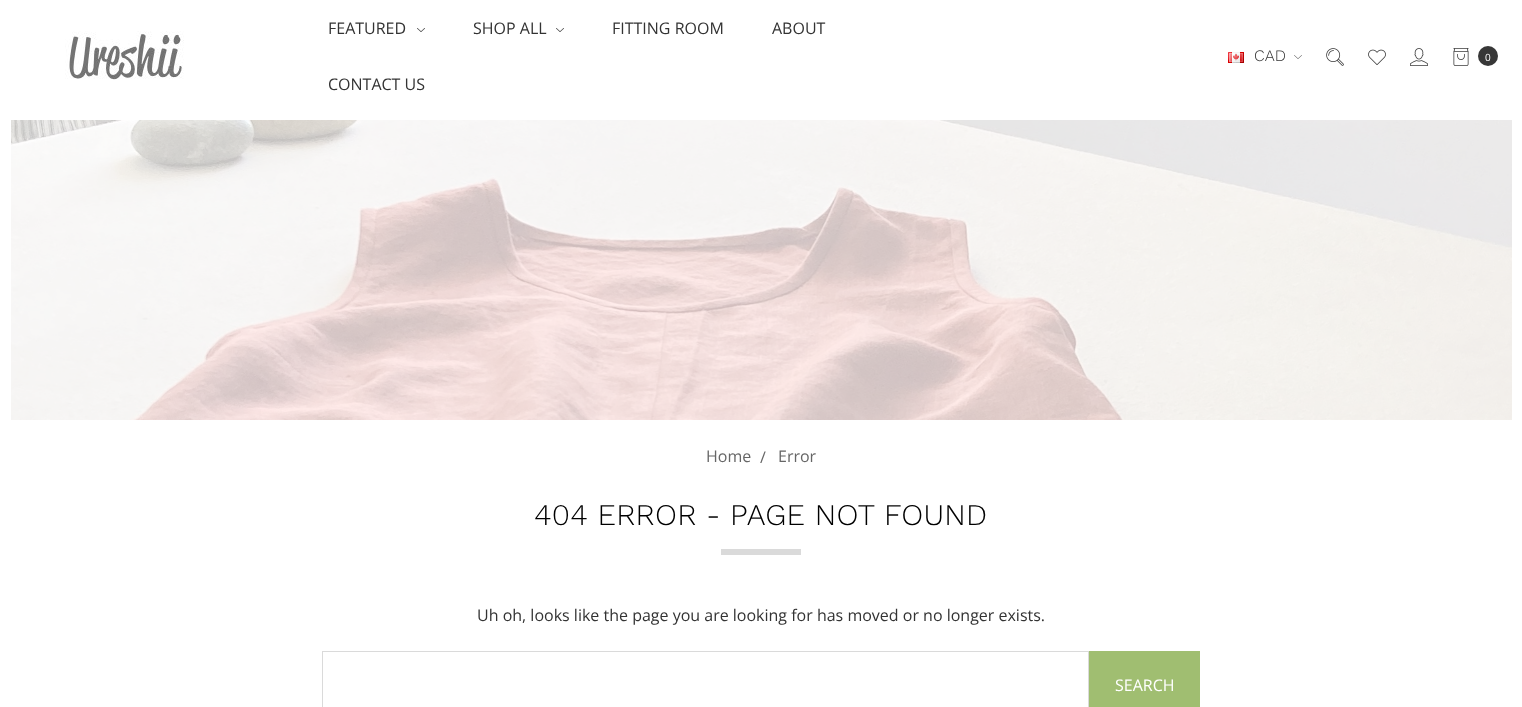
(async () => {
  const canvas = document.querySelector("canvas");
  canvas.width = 1522;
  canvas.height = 707;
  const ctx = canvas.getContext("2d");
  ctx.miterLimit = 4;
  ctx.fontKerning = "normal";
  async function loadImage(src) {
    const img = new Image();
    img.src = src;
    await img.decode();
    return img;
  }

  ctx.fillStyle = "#ffffff";
  ctx.fillRect(0, 0, 1522, 707);
  ctx.drawImage(await loadImage("img/1.png"), 65, 31, 119, 49);
  ctx.drawImage(await loadImage("img/2.png"), 417, 28, 8, 4);
  ctx.drawImage(await loadImage("img/2.png"), 556, 28, 8, 4);
  ctx.drawImage(await loadImage("img/3.png"), 1228, 52, 16, 11);
  ctx.drawImage(await loadImage("img/4.png"), 1294, 55, 8, 4);
  ctx.drawImage(await loadImage("img/5.png"), 1326, 48, 18, 18);
  ctx.drawImage(await loadImage("img/6.png"), 1368, 49, 18, 16);
  ctx.drawImage(await loadImage("img/7.png"), 1410, 48, 18, 18);
  ctx.drawImage(await loadImage("img/8.png"), 1453, 48, 16, 18);
  ctx.fillStyle = "#373737";
  ctx.beginPath();
  ctx.arc(1488, 56, 10, 0, Math.PI * 2);
  ctx.fill();
  ctx.drawImage(await loadImage("img/9.png"), 11, 120, 1501, 300);
  ctx.fillStyle = "#dadada";
  ctx.fillRect(721, 549, 80, 6);
  ctx.strokeStyle = "#dadada";
  ctx.strokeRect(322.5, 651.5, 766, 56);
  ctx.fillStyle = "#a0be71";
  ctx.fillRect(1089, 651, 111, 56);
  ctx.font = "16px Open Sans";
  ctx.fillStyle = "#333333";
  for (const [text, x, y] of [
    ["FEATURED", 328, 34],
    ["SHOP ALL", 473, 34],
    ["FITTING ROOM", 612, 34],
    ["ABOUT", 772, 34],
    ["CONTACT US", 328, 90],
  ]) {
    ctx.fillText(text, x, y);
  }
  ctx.font = "300 16px Work Sans";
  ctx.fillText("CAD", 1254, 61);
  ctx.font = "10px Open Sans";
  ctx.fillStyle = "#ffffff";
  ctx.fillText("0", 1485, 61);
  ctx.font = "16px Open Sans";
  ctx.fillStyle = "#666666";
  for (const [text, x, y] of [
    ["Home", 706, 462],
    ["/", 760, 463],
    ["Error", 778, 462],
  ]) {
    ctx.fillText(text, x, y);
  }
  ctx.letterSpacing = "0.25px";
  ctx.font = "300 30px Work Sans";
  ctx.fillStyle = "#000000";
  ctx.fillText("404 ERROR - PAGE NOT FOUND", 534, 525);
  ctx.letterSpacing = "0px";
  ctx.font = "16px Open Sans";
  ctx.fillStyle = "#333333";
  ctx.fillText("Uh oh, looks like the page you are looking for has moved or no longer exists.", 477, 621);
  ctx.fillStyle = "#ffffff";
  ctx.fillText("SEARCH", 1115, 691);
})();
